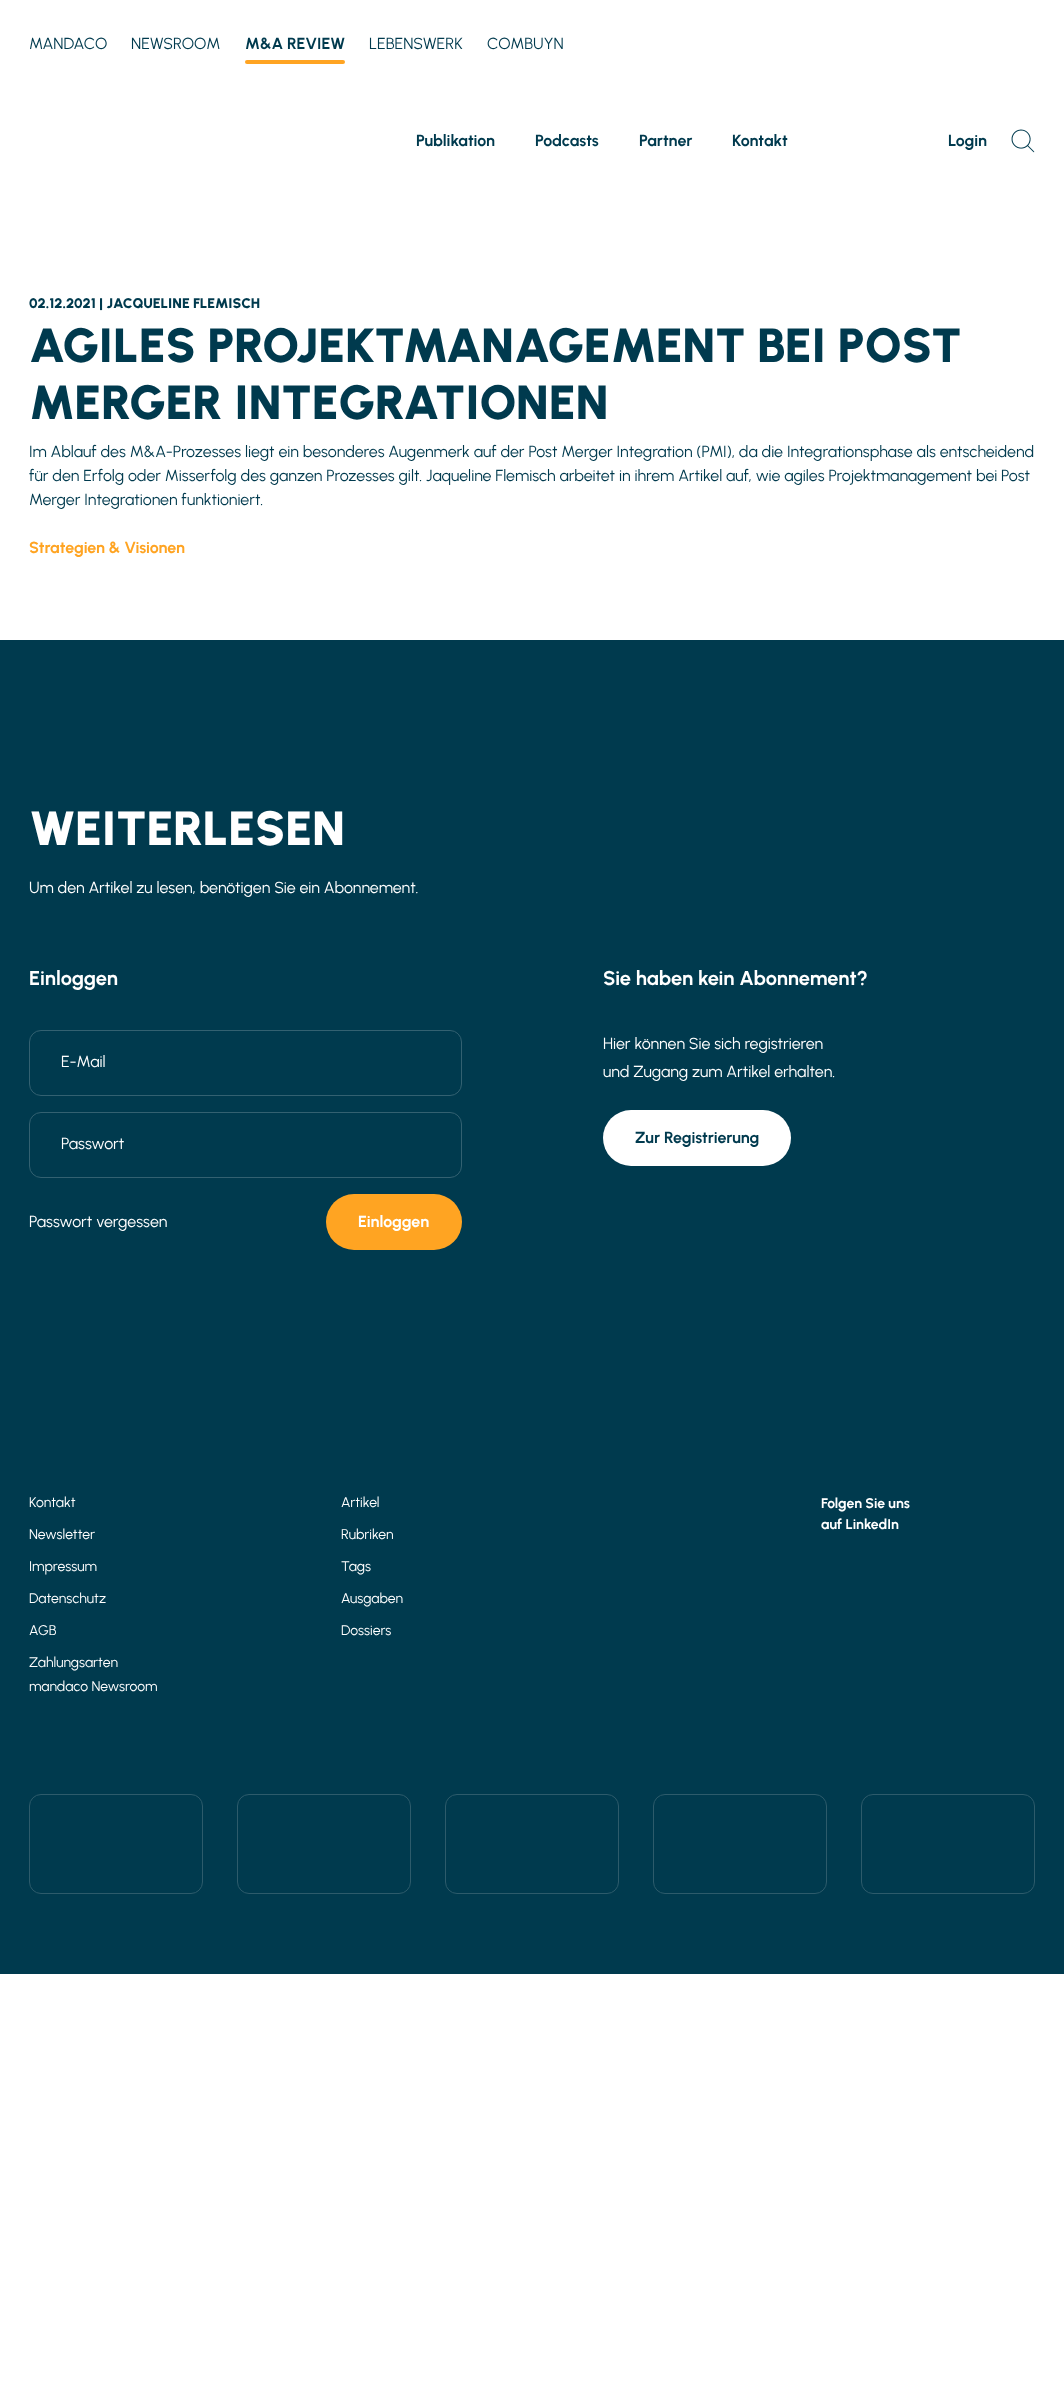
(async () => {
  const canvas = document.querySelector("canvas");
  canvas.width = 1064;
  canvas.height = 2382;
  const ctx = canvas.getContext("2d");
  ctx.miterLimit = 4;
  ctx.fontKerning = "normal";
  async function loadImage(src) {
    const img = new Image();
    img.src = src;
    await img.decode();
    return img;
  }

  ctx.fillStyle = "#ffffff";
  ctx.fillRect(0, 0, 1064, 2382);
  ctx.fillStyle = "#ffa422";
  ctx.beginPath();
  ctx.roundRect(245, 60, 100, 4, 2);
  ctx.fill();
  ctx.drawImage(await loadImage("img/1.png"), 1011, 129, 24, 24);
  ctx.fillStyle = "#003a4e";
  ctx.fillRect(0, 640, 1064, 1334);
  ctx.beginPath();
  ctx.roundRect(29.5, 1030.5, 432, 65, 11.5);
  ctx.strokeStyle = "#336171";
  ctx.stroke();
  ctx.beginPath();
  ctx.roundRect(29.5, 1112.5, 432, 65, 11.5);
  ctx.stroke();
  ctx.fillStyle = "#ffa422";
  ctx.beginPath();
  ctx.roundRect(326, 1194, 136, 56, 28);
  ctx.fill();
  ctx.fillStyle = "#ffffff";
  ctx.beginPath();
  ctx.roundRect(603, 1110, 188, 56, 28);
  ctx.fill();
  ctx.beginPath();
  ctx.roundRect(29.5, 1794.5, 173, 99, 11.5);
  ctx.strokeStyle = "#2d5b6b";
  ctx.stroke();
  ctx.beginPath();
  ctx.roundRect(237.5, 1794.5, 173, 99, 11.5);
  ctx.stroke();
  ctx.beginPath();
  ctx.roundRect(445.5, 1794.5, 173, 99, 11.5);
  ctx.stroke();
  ctx.beginPath();
  ctx.roundRect(653.5, 1794.5, 173, 99, 11.5);
  ctx.stroke();
  ctx.beginPath();
  ctx.roundRect(861.5, 1794.5, 173, 99, 11.5);
  ctx.stroke();
  ctx.font = "16px Urbanist";
  ctx.fillStyle = "#003a4e";
  ctx.fillText("MANDACO", 29, 49);
  ctx.fillText("NEWSROOM", 131, 49);
  ctx.font = "bold 16px Urbanist";
  ctx.fillText("M&A REVIEW", 245, 49);
  ctx.font = "16px Urbanist";
  ctx.fillText("LEBENSWERK", 369, 49);
  ctx.fillText("COMBUYN", 487, 49);
  ctx.font = "bold 16px Urbanist";
  for (const [text, x, y] of [
    ["Publikation", 416, 146],
    ["Podcasts", 535, 146],
    ["Partner", 639, 146],
    ["Kontakt", 732, 146],
    ["Login", 948, 146],
  ]) {
    ctx.fillText(text, x, y);
  }
  ctx.font = "900 14px Urbanist";
  ctx.fillText("02.12.2021 | JACQUELINE FLEMISCH", 29, 308);
  ctx.font = "900 48px Urbanist";
  ctx.fillText("AGILES PROJEKTMANAGEMENT BEI POST", 29, 362);
  ctx.fillText("MERGER INTEGRATIONEN", 29, 419);
  ctx.font = "16px Urbanist";
  for (const [text, x, y] of [
    ["Im Ablauf des M&A-Prozesses liegt ein besonderes Augenmerk auf der Post Merger Integration (PMI), da die Integrationsphase als entscheidend", 29, 457],
    ["für den Erfolg oder Misserfolg des ganzen Prozesses gilt. Jaqueline Flemisch arbeitet in ihrem Artikel auf, wie agiles Projektmanagement bei Post", 29, 481],
    ["Merger Integrationen funktioniert.", 29, 505],
  ]) {
    ctx.fillText(text, x, y);
  }
  ctx.font = "bold 16px Urbanist";
  ctx.fillStyle = "#ffa422";
  ctx.fillText("Strategien & Visionen", 29, 553);
  ctx.font = "900 48px Urbanist";
  ctx.fillStyle = "#ffffff";
  ctx.fillText("WEITERLESEN", 29, 845);
  ctx.font = "16px Urbanist";
  ctx.fillText("Um den Artikel zu lesen, benötigen Sie ein Abonnement.", 29, 893);
  ctx.font = "bold 20px Urbanist";
  ctx.fillText("Einloggen", 29, 985);
  ctx.font = "16px Urbanist";
  for (const [text, x, y] of [
    ["E-Mail", 61, 1067],
    ["Passwort", 61, 1149],
    ["Passwort vergessen", 29, 1227],
  ]) {
    ctx.fillText(text, x, y);
  }
  ctx.font = "bold 16px Urbanist";
  ctx.fillText("Einloggen", 358, 1227);
  ctx.font = "bold 20px Urbanist";
  ctx.fillText("Sie haben kein Abonnement?", 603, 985);
  ctx.font = "16px Urbanist";
  ctx.fillText("Hier können Sie sich registrieren", 603, 1049);
  ctx.fillText("und Zugang zum Artikel erhalten.", 603, 1077);
  ctx.font = "bold 16px Urbanist";
  ctx.fillStyle = "#003a4e";
  ctx.fillText("Zur Registrierung", 635, 1143);
  ctx.font = "14px Urbanist";
  ctx.fillStyle = "#ffffff";
  for (const [text, x, y] of [
    ["Kontakt", 29, 1507],
    ["Newsletter", 29, 1539],
    ["Impressum", 29, 1571],
    ["Datenschutz", 29, 1603],
    ["AGB", 29, 1635],
    ["Zahlungsarten", 29, 1667],
    ["Artikel", 341, 1507],
    ["Rubriken", 341, 1539],
    ["Tags", 341, 1571],
    ["Ausgaben", 341, 1603],
    ["Dossiers", 341, 1635],
    ["mandaco Newsroom", 29, 1691],
  ]) {
    ctx.fillText(text, x, y);
  }
  ctx.font = "bold 14px Urbanist";
  ctx.fillText("Folgen Sie uns", 821, 1508);
  ctx.fillText("auf LinkedIn", 821, 1529);
})();
